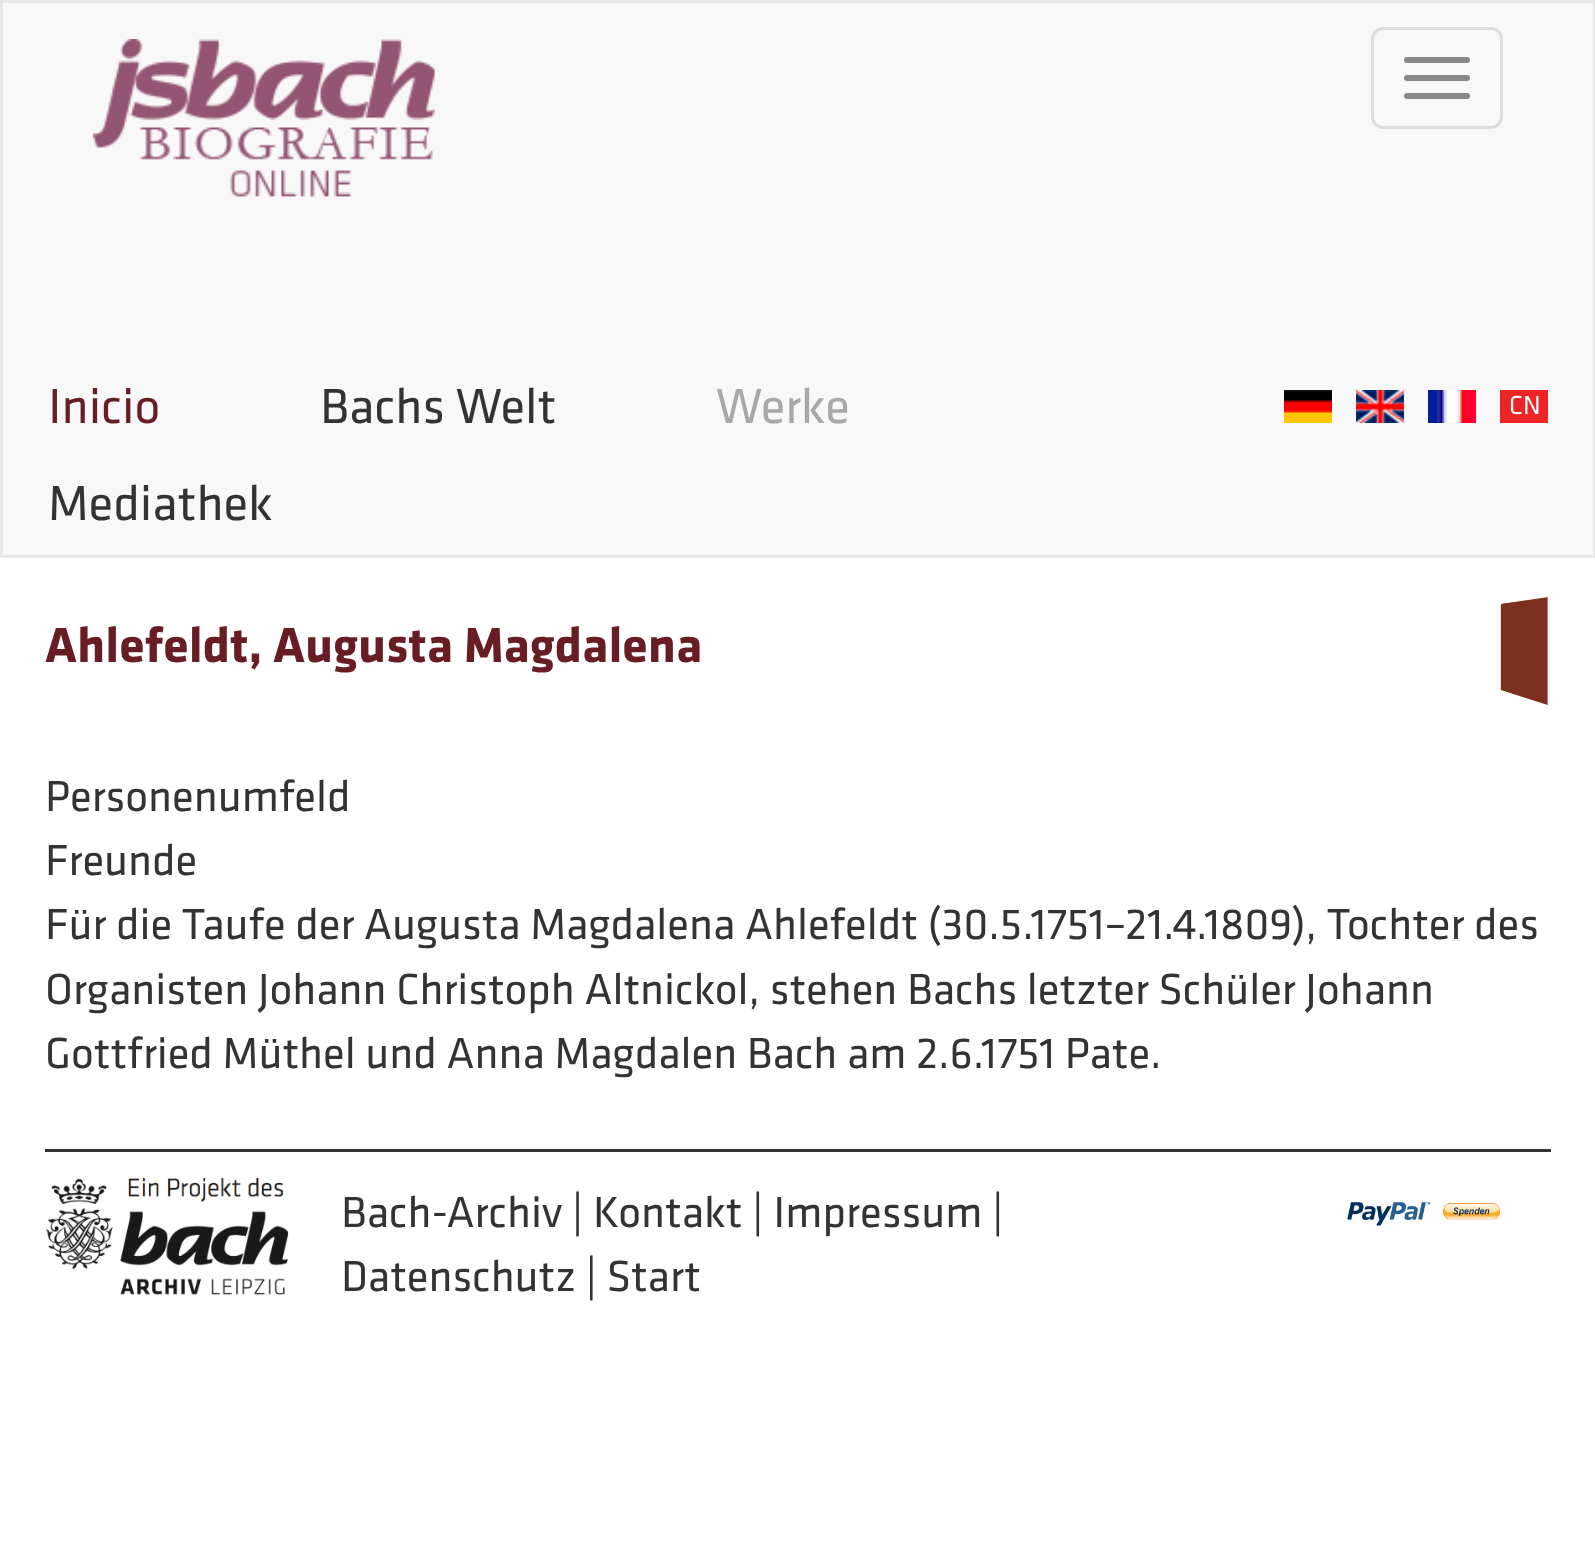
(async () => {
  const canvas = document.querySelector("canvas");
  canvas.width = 1595;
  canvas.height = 1545;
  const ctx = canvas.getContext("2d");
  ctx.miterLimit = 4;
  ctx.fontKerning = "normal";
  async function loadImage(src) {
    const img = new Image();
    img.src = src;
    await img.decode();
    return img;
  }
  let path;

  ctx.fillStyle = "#ffffff";
  ctx.fillRect(0, 0, 1595, 1545);
  ctx.fillStyle = "#f8f8f8";
  ctx.beginPath();
  ctx.rect(1.5, 1.5, 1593, 555);
  ctx.fill();
  ctx.strokeStyle = "#e7e7e7";
  ctx.lineWidth = 3;
  ctx.stroke();
  ctx.drawImage(await loadImage("img/1.png"), 93, 39, 344, 158);
  ctx.beginPath();
  ctx.roundRect(1372.5, 28.5, 129, 99, 10.5);
  ctx.strokeStyle = "#dddddd";
  ctx.stroke();
  ctx.fillStyle = "#888888";
  ctx.beginPath();
  ctx.roundRect(1404, 57, 66, 6, 3);
  ctx.fill();
  ctx.beginPath();
  ctx.roundRect(1404, 75, 66, 6, 3);
  ctx.fill();
  ctx.beginPath();
  ctx.roundRect(1404, 93, 66, 6, 3);
  ctx.fill();
  ctx.drawImage(await loadImage("img/2.png"), 1284, 390, 48, 33);
  ctx.drawImage(await loadImage("img/3.png"), 1356, 390, 48, 33);
  ctx.drawImage(await loadImage("img/4.png"), 1428, 390, 48, 33);
  ctx.fillStyle = "#ee2325";
  ctx.fillRect(1500, 390, 48, 33);
  ctx.drawImage(await loadImage("img/5.png"), 1510, 395, 29, 20);
  ctx.fillStyle = "#7c2f1e";
  path = new Path2D("M1547 598L1502 604V690L1547 704Z");
  ctx.fill(path);
  path = new Path2D("M1547 598L1501.5 604.5V689.5L1547 704Z");
  ctx.strokeStyle = "#7c2f1e";
  ctx.lineWidth = 1.3;
  ctx.stroke(path);
  ctx.fillStyle = "#333333";
  ctx.fillRect(45, 1149, 1506, 3);
  ctx.drawImage(await loadImage("img/6.png"), 45, 1177, 244, 118);
  ctx.drawImage(await loadImage("img/7.png"), 1344, 1202, 158, 25);
  ctx.font = "51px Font";
  ctx.fillStyle = "#681d25";
  ctx.fillText("Inicio", 48, 423);
  ctx.fillStyle = "#333333";
  ctx.fillText("Bachs Welt", 320, 423);
  ctx.fillStyle = "#a8a8a8";
  ctx.fillText("Werke", 716, 423);
  ctx.fillStyle = "#333333";
  ctx.fillText("Mediathek", 48, 520);
  ctx.font = "bold 51px Font";
  ctx.fillStyle = "#681d25";
  ctx.fillText("Ahlefeldt, Augusta Magdalena", 45, 662);
  ctx.font = "45px Font";
  ctx.fillStyle = "#333333";
  for (const [text, x, y] of [
    ["Personenumfeld", 45, 811],
    ["Freunde", 45, 875],
    ["Für die Taufe der Augusta Magdalena Ahlefeldt (30.5.1751–21.4.1809), Tochter des", 45, 939],
    ["Organisten Johann Christoph Altnickol, stehen Bachs letzter Schüler Johann", 45, 1004],
    ["Gottfried Müthel und Anna Magdalen Bach am 2.6.1751 Pate.", 45, 1068],
    ["Bach-Archiv | Kontakt | Impressum |", 341, 1227],
    ["Datenschutz | Start", 341, 1291],
  ]) {
    ctx.fillText(text, x, y);
  }
})();
